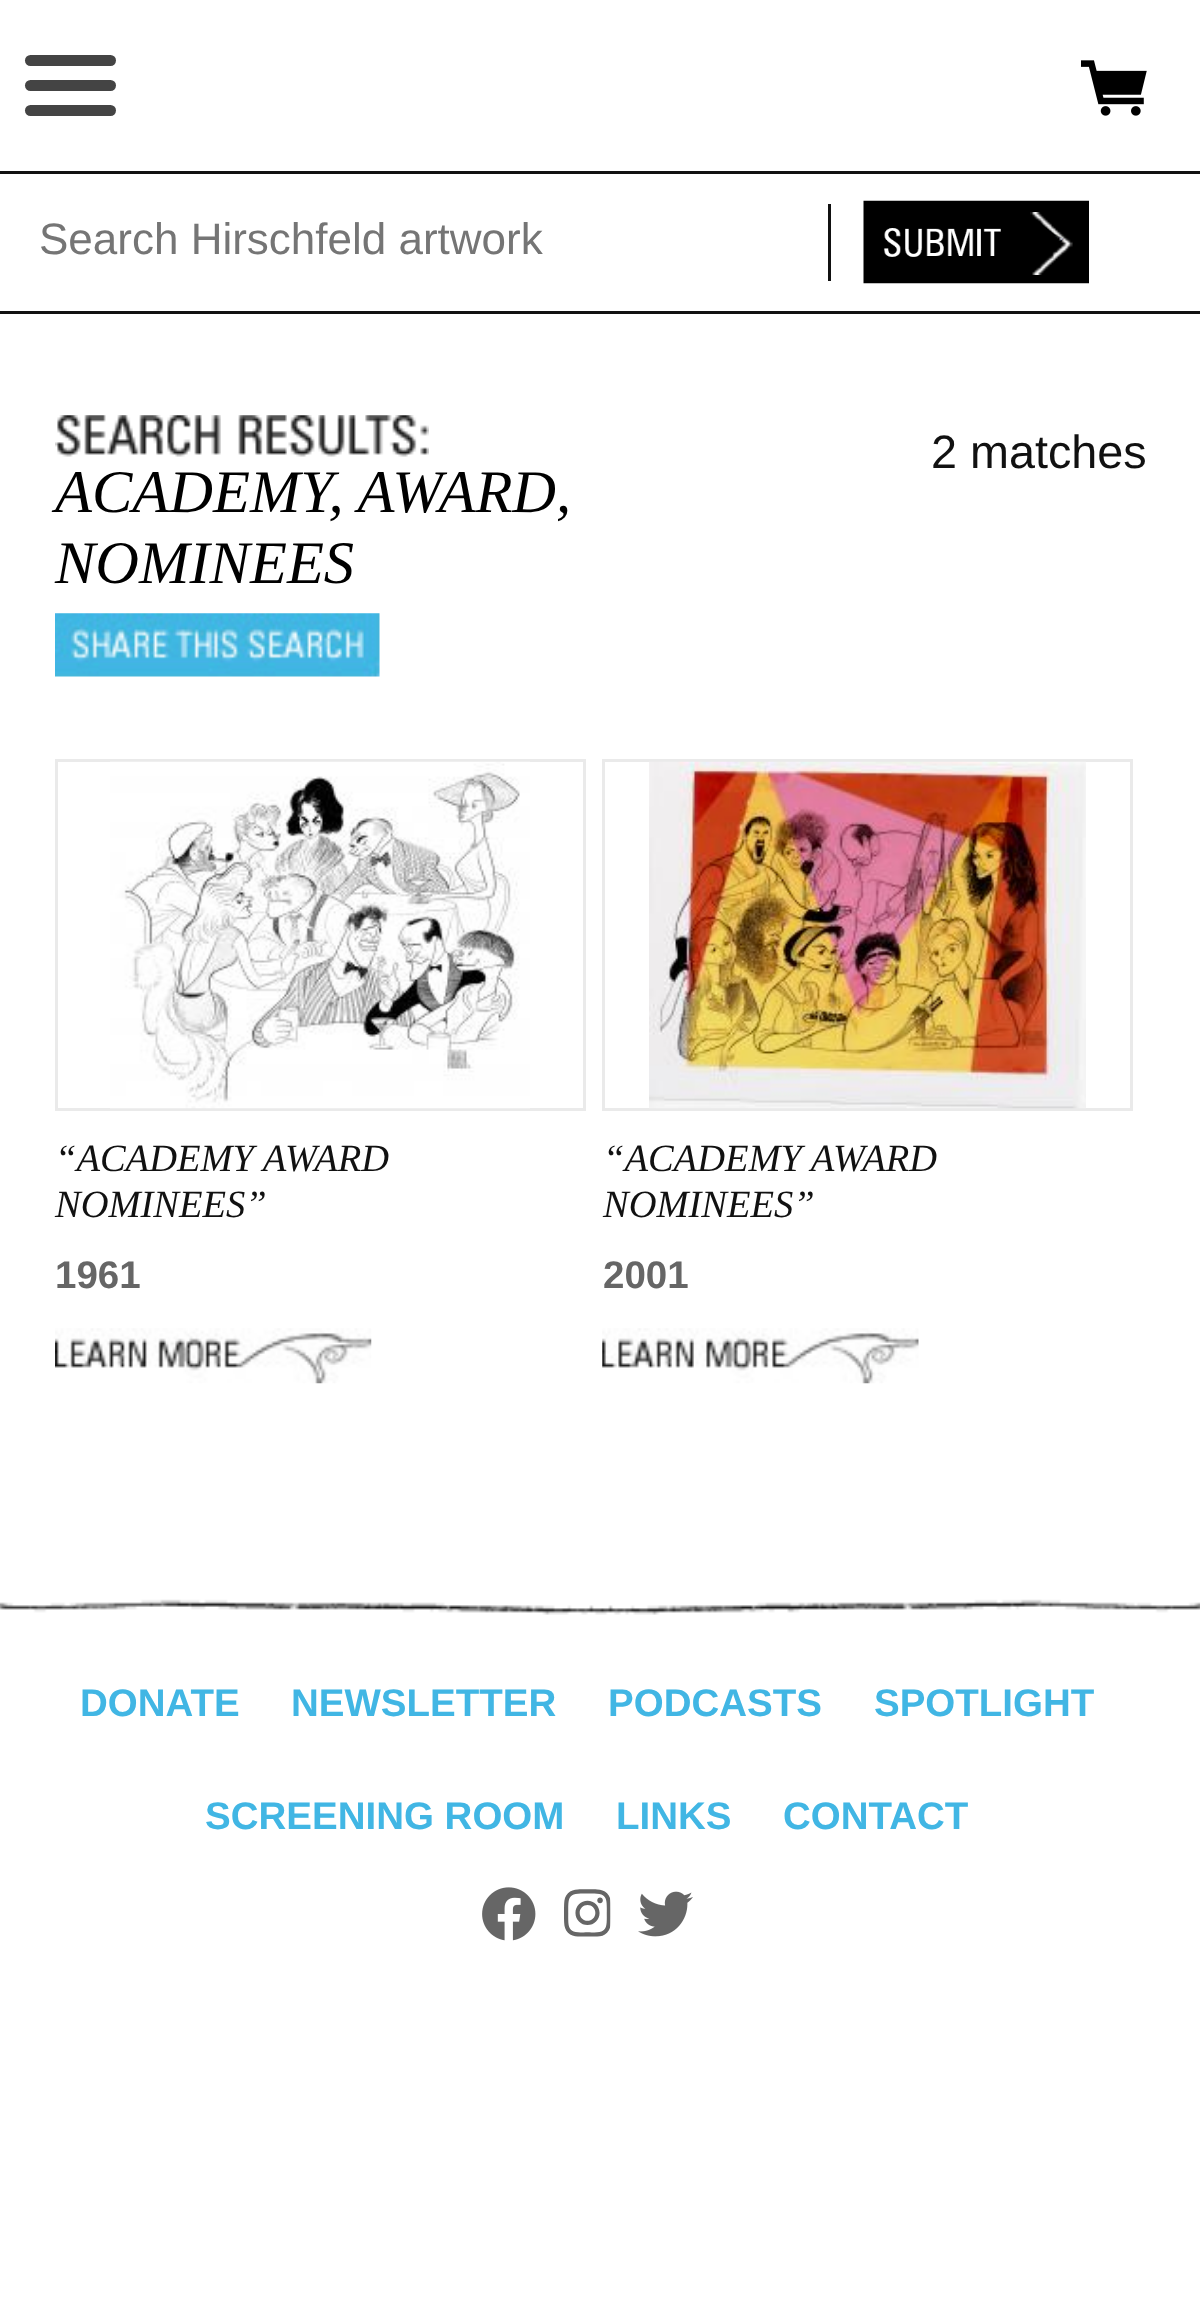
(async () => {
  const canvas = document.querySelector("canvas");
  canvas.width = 1200;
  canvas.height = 2300;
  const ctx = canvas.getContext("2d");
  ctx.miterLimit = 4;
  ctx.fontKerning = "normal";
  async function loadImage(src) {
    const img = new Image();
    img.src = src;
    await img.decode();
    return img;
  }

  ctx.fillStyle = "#ffffff";
  ctx.fillRect(0, 0, 1200, 2300);
  ctx.fillStyle = "#444444";
  ctx.beginPath();
  ctx.roundRect(25, 55, 91, 11, 5.5);
  ctx.fill();
  ctx.beginPath();
  ctx.roundRect(25, 80, 91, 11, 5.5);
  ctx.fill();
  ctx.beginPath();
  ctx.roundRect(25, 105, 91, 11, 5.5);
  ctx.fill();
  ctx.drawImage(await loadImage("img/1.png"), 1081, 60, 66, 56);
  for (const [x, y, w, h, color] of [
    [0, 171, 1200, 3, "#111111"],
    [0, 311, 1200, 3, "#111111"],
    [828, 204, 3, 77, "#111111"],
  ]) {
    ctx.fillStyle = color;
    ctx.fillRect(x, y, w, h);
  }
  ctx.drawImage(await loadImage("img/2.png"), 863, 200, 226, 84);
  ctx.drawImage(await loadImage("img/3.png"), 55, 415, 374, 42);
  ctx.drawImage(await loadImage("img/4.png"), 55, 613, 325, 64);
  ctx.strokeStyle = "#eaeaea";
  ctx.lineWidth = 3;
  ctx.strokeRect(56.5, 760.5, 528, 349);
  ctx.drawImage(await loadImage("img/5.png"), 110, 761, 420, 348);
  ctx.drawImage(await loadImage("img/6.png"), 55, 1328, 317, 56);
  ctx.strokeRect(603.5, 760.5, 528, 349);
  ctx.drawImage(await loadImage("img/7.png"), 649, 761, 437, 348);
  ctx.drawImage(await loadImage("img/8.png"), 602, 1328, 317, 56);
  ctx.drawImage(await loadImage("img/9.png"), 0, 1599, 1200, 16);
  ctx.drawImage(await loadImage("img/10.png"), 482, 1887, 54, 54);
  ctx.drawImage(await loadImage("img/11.png"), 564, 1889, 47, 48);
  ctx.drawImage(await loadImage("img/12.png"), 638, 1891, 55, 46);
  ctx.font = "44px Liberation Sans";
  ctx.fillStyle = "#757575";
  ctx.fillText("Search Hirschfeld artwork", 39, 254);
  ctx.font = "46.75px Liberation Sans";
  ctx.fillStyle = "#111111";
  ctx.fillText("2 matches", 931, 468);
  ctx.font = "italic 60.5px Liberation Serif";
  ctx.fillStyle = "#000000";
  ctx.fillText("ACADEMY, AWARD,", 55, 512);
  ctx.fillText("NOMINEES", 55, 583);
  ctx.font = "italic 38.5px Liberation Serif";
  ctx.fillStyle = "#111111";
  ctx.fillText("“ACADEMY AWARD", 55, 1171);
  ctx.fillText("NOMINEES”", 55, 1217);
  ctx.font = "bold 38.5px Liberation Sans";
  ctx.fillStyle = "#666666";
  ctx.fillText("1961", 55, 1288);
  ctx.font = "italic 38.5px Liberation Serif";
  ctx.fillStyle = "#111111";
  ctx.fillText("“ACADEMY AWARD", 603, 1171);
  ctx.fillText("NOMINEES”", 603, 1217);
  ctx.font = "bold 38.5px Liberation Sans";
  ctx.fillStyle = "#666666";
  ctx.fillText("2001", 603, 1288);
  ctx.fillStyle = "#41b6e4";
  for (const [text, x, y] of [
    ["DONATE", 80, 1716],
    ["NEWSLETTER", 291, 1716],
    ["PODCASTS", 608, 1716],
    ["SPOTLIGHT", 874, 1716],
    ["SCREENING ROOM", 205, 1829],
    ["LINKS", 616, 1829],
    ["CONTACT", 783, 1829],
  ]) {
    ctx.fillText(text, x, y);
  }
})();
